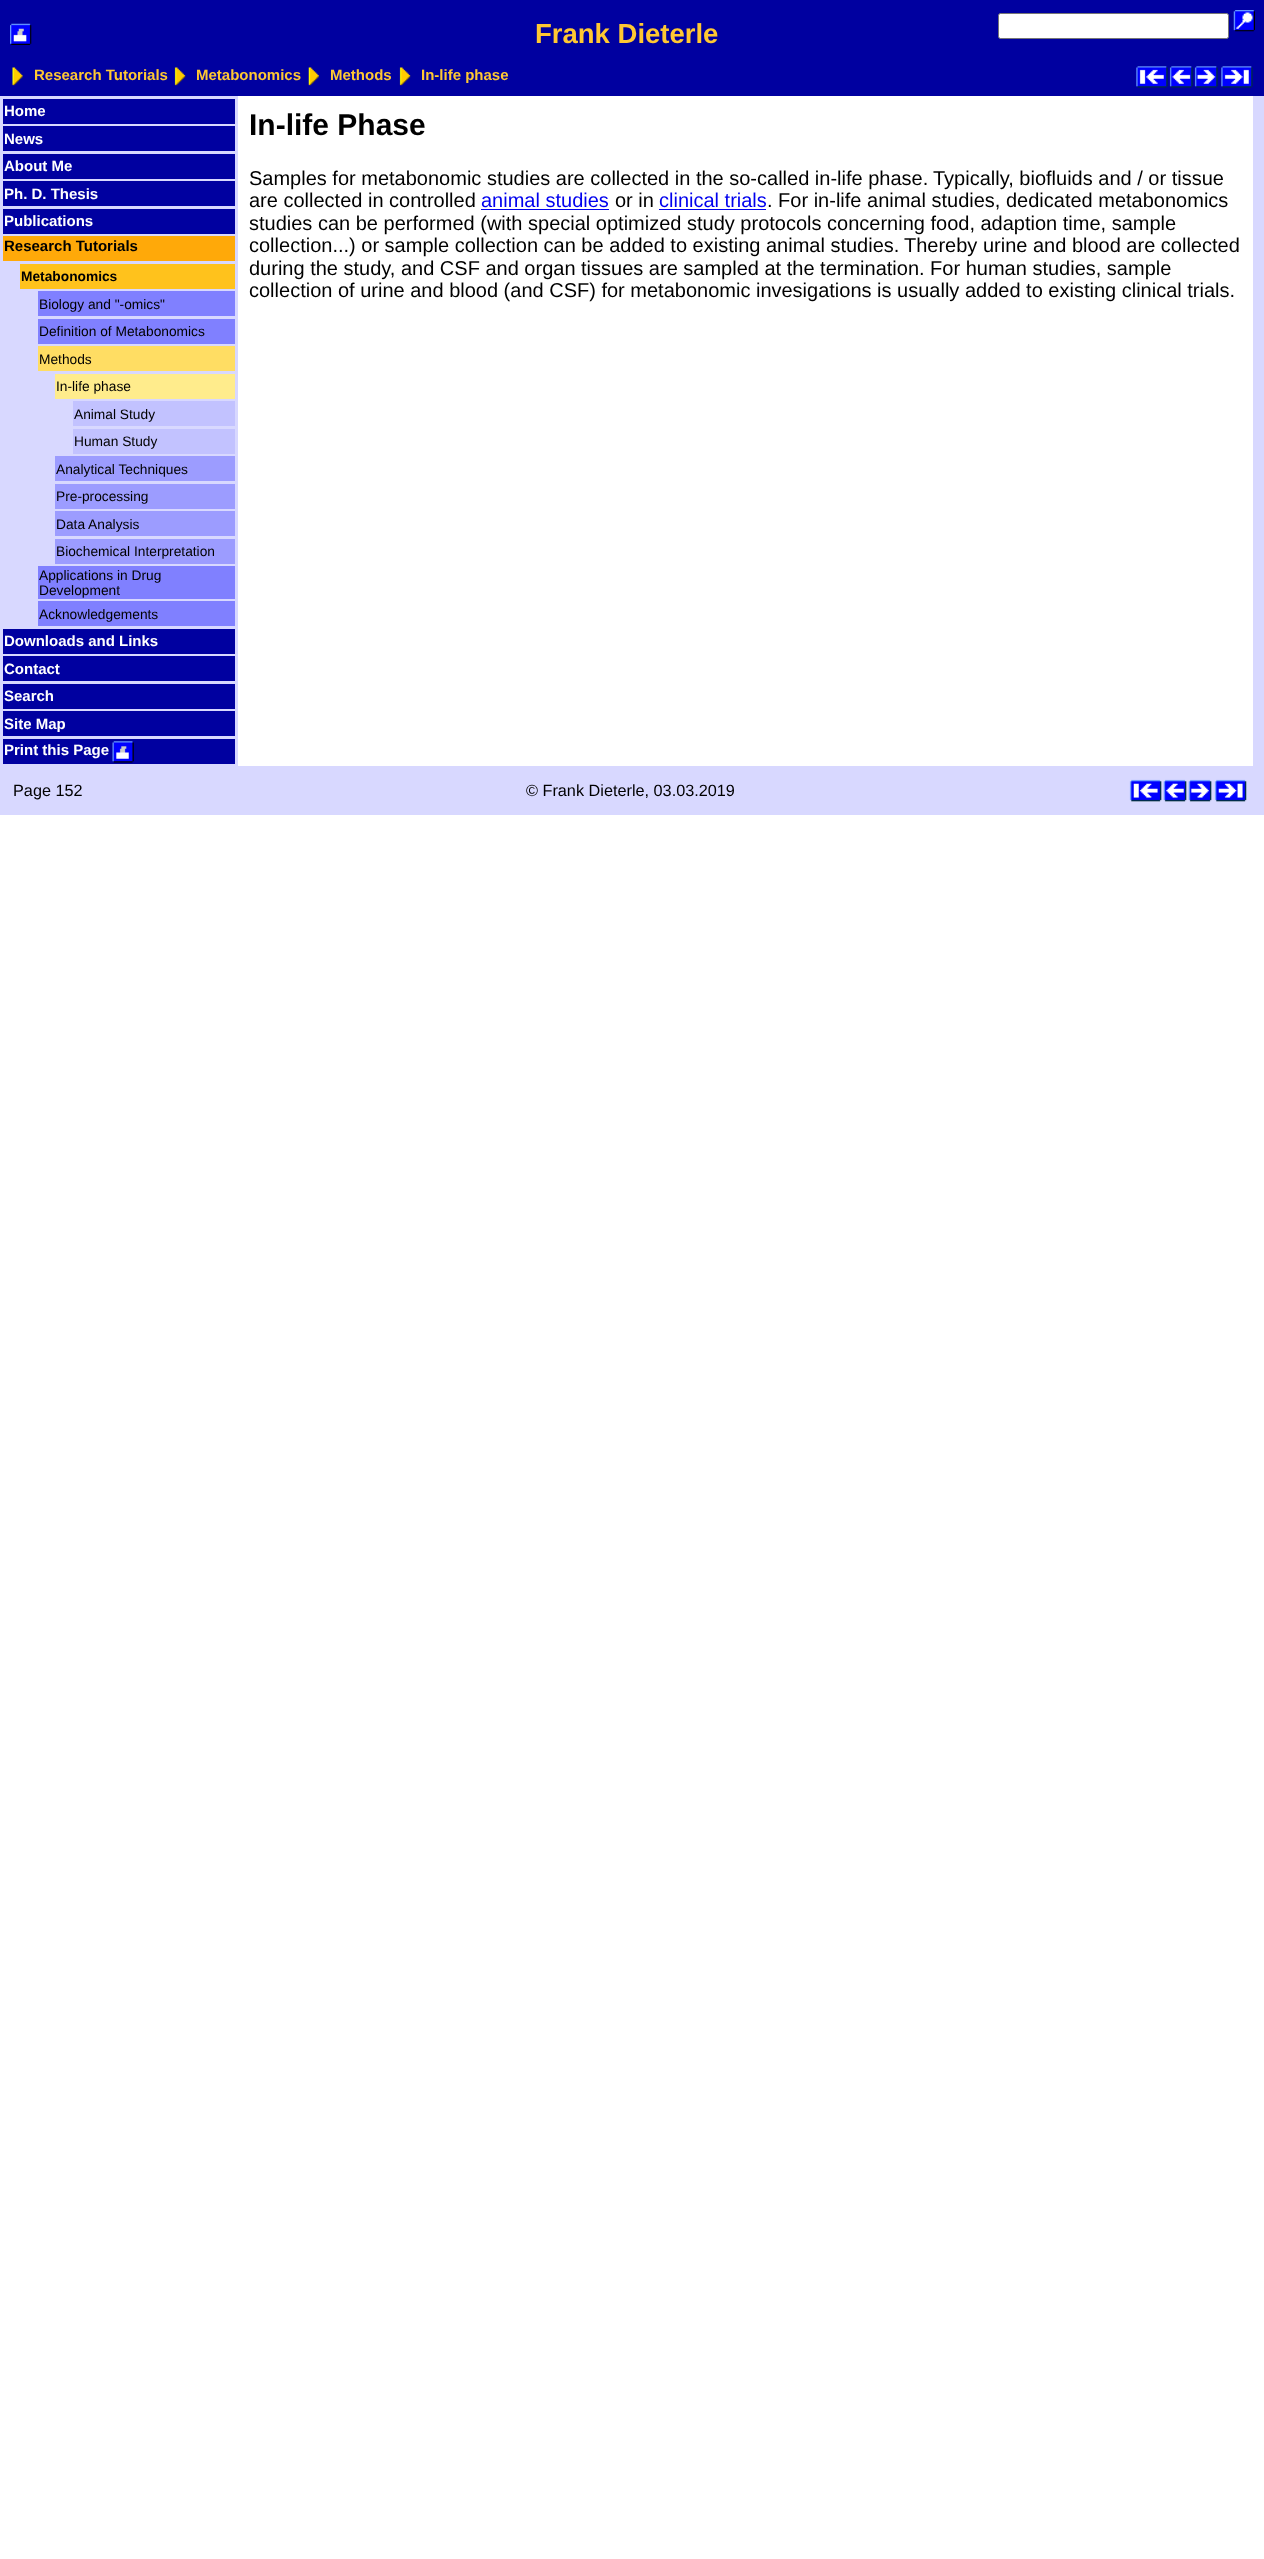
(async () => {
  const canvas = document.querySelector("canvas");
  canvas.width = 1264;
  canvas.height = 2559;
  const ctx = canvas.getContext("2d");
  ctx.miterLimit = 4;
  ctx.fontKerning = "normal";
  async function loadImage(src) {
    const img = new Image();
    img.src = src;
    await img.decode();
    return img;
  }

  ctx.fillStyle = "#ffffff";
  ctx.fillRect(0, 0, 1264, 2559);
  ctx.fillStyle = "#0000a0";
  ctx.fillRect(0, 0, 1264, 96);
  ctx.drawImage(await loadImage("img/1.png"), 10, 23, 22, 22);
  ctx.fillStyle = "#ffffff";
  ctx.beginPath();
  ctx.roundRect(998.5, 13.5, 230, 25, 2);
  ctx.fill();
  ctx.strokeStyle = "#767676";
  ctx.stroke();
  ctx.drawImage(await loadImage("img/2.png"), 1233, 10, 22, 22);
  ctx.drawImage(await loadImage("img/3.png"), 12, 67, 11, 19);
  ctx.drawImage(await loadImage("img/4.png"), 174, 67, 12, 19);
  ctx.drawImage(await loadImage("img/5.png"), 308, 67, 11, 19);
  ctx.drawImage(await loadImage("img/6.png"), 399, 67, 12, 19);
  ctx.drawImage(await loadImage("img/7.png"), 1136, 66, 117, 22);
  for (const [x, y, w, h, color] of [
    [0, 96, 238, 670, "#d8d8ff"],
    [3, 99, 232, 25, "#0000a0"],
    [3, 126, 232, 25, "#0000a0"],
    [3, 154, 232, 25, "#0000a0"],
    [3, 181, 232, 25, "#0000a0"],
    [3, 209, 232, 25, "#0000a0"],
    [3, 236, 232, 25, "#ffa909"],
    [20, 264, 215, 25, "#ffc21c"],
    [38, 291, 197, 25, "#8080ff"],
    [38, 319, 197, 25, "#8080ff"],
    [38, 346, 197, 25, "#ffdd63"],
    [55, 374, 180, 25, "#ffec8c"],
    [73, 401, 162, 25, "#c2c2ff"],
    [73, 429, 162, 25, "#c2c2ff"],
    [55, 456, 180, 25, "#9c9cff"],
    [55, 484, 180, 25, "#9c9cff"],
    [55, 511, 180, 25, "#9c9cff"],
    [55, 539, 180, 25, "#9c9cff"],
    [38, 566, 197, 33, "#8080ff"],
    [38, 601, 197, 25, "#8080ff"],
    [3, 629, 232, 25, "#0000a0"],
    [3, 656, 232, 25, "#0000a0"],
    [3, 684, 232, 25, "#0000a0"],
    [3, 711, 232, 25, "#0000a0"],
    [3, 739, 232, 25, "#0000a0"],
  ]) {
    ctx.fillStyle = color;
    ctx.fillRect(x, y, w, h);
  }
  ctx.drawImage(await loadImage("img/8.png"), 112, 741, 22, 22);
  for (const [x, y, w, h, color] of [
    [481, 209, 128, 1, "#0000ee"],
    [659, 209, 107, 1, "#0000ee"],
    [1253, 96, 11, 670, "#d8d8ff"],
    [0, 766, 1264, 49, "#d8d8ff"],
  ]) {
    ctx.fillStyle = color;
    ctx.fillRect(x, y, w, h);
  }
  ctx.drawImage(await loadImage("img/9.png"), 1129, 779, 118, 23);
  ctx.font = "bold 27.5px Liberation Sans";
  ctx.fillStyle = "#ffc832";
  ctx.fillText("Frank Dieterle", 535, 43);
  ctx.font = "bold 15px Liberation Sans";
  for (const [text, x, y] of [
    ["Research Tutorials", 34, 80],
    ["Metabonomics", 196, 80],
    ["Methods", 330, 80],
    ["In-life phase", 421, 80],
  ]) {
    ctx.fillText(text, x, y);
  }
  ctx.fillStyle = "#ffffff";
  for (const [text, x, y] of [
    ["Home", 4, 116],
    ["News", 4, 144],
    ["About Me", 4, 171],
    ["Ph. D. Thesis", 4, 199],
    ["Publications", 4, 226],
  ]) {
    ctx.fillText(text, x, y);
  }
  ctx.fillStyle = "#000000";
  ctx.fillText("Research Tutorials", 4, 251);
  ctx.font = "bold 13.75px Liberation Sans";
  ctx.fillText("Metabonomics", 21, 281);
  ctx.font = "13.75px Liberation Sans";
  for (const [text, x, y] of [
    ["Biology and \"-omics\"", 39, 309],
    ["Definition of Metabonomics", 39, 336],
    ["Methods", 39, 364],
    ["In-life phase", 56, 391],
    ["Animal Study", 74, 419],
    ["Human Study", 74, 446],
    ["Analytical Techniques", 56, 474],
    ["Pre-processing", 56, 501],
    ["Data Analysis", 56, 529],
    ["Biochemical Interpretation", 56, 556],
    ["Applications in Drug", 39, 580],
    ["Development", 39, 595],
    ["Acknowledgements", 39, 619],
  ]) {
    ctx.fillText(text, x, y);
  }
  ctx.font = "bold 15px Liberation Sans";
  ctx.fillStyle = "#ffffff";
  for (const [text, x, y] of [
    ["Downloads and Links", 4, 646],
    ["Contact", 4, 674],
    ["Search", 4, 701],
    ["Site Map", 4, 729],
    ["Print this Page", 4, 755],
  ]) {
    ctx.fillText(text, x, y);
  }
  ctx.font = "bold 30px Liberation Sans";
  ctx.fillStyle = "#000000";
  ctx.fillText("In-life Phase", 249, 135);
  ctx.font = "20px Liberation Sans";
  for (const [text, x, y] of [
    ["Samples for metabonomic studies are collected in the so-called in-life phase.", 249, 185],
    ["Typically, biofluids and / or tissue", 933, 185],
    ["are collected in controlled", 249, 207],
  ]) {
    ctx.fillText(text, x, y);
  }
  ctx.fillStyle = "#0000ee";
  ctx.fillText("animal studies", 481, 207);
  ctx.fillStyle = "#000000";
  ctx.fillText("or in", 615, 207);
  ctx.fillStyle = "#0000ee";
  ctx.fillText("clinical trials", 659, 207);
  ctx.fillStyle = "#000000";
  for (const [text, x, y] of [
    [". For in-life animal studies, dedicated metabonomics", 767, 207],
    ["studies can be performed (with special optimized study protocols concerning food, adaption time, sample", 249, 230],
    ["collection...) or sample collection can be added to existing animal studies.", 249, 252],
    ["Thereby urine and blood are collected", 904, 252],
    ["during the study, and CSF and organ tissues are sampled at the termination. For human studies, sample", 249, 275],
    ["collection of urine and blood (and CSF) for metabonomic invesigations is usually added to existing clinical trials.", 249, 297],
  ]) {
    ctx.fillText(text, x, y);
  }
  ctx.font = "16.25px Liberation Sans";
  ctx.fillText("Page 152", 13, 796);
  ctx.fillText("© Frank Dieterle, 03.03.2019", 526, 796);
})();
